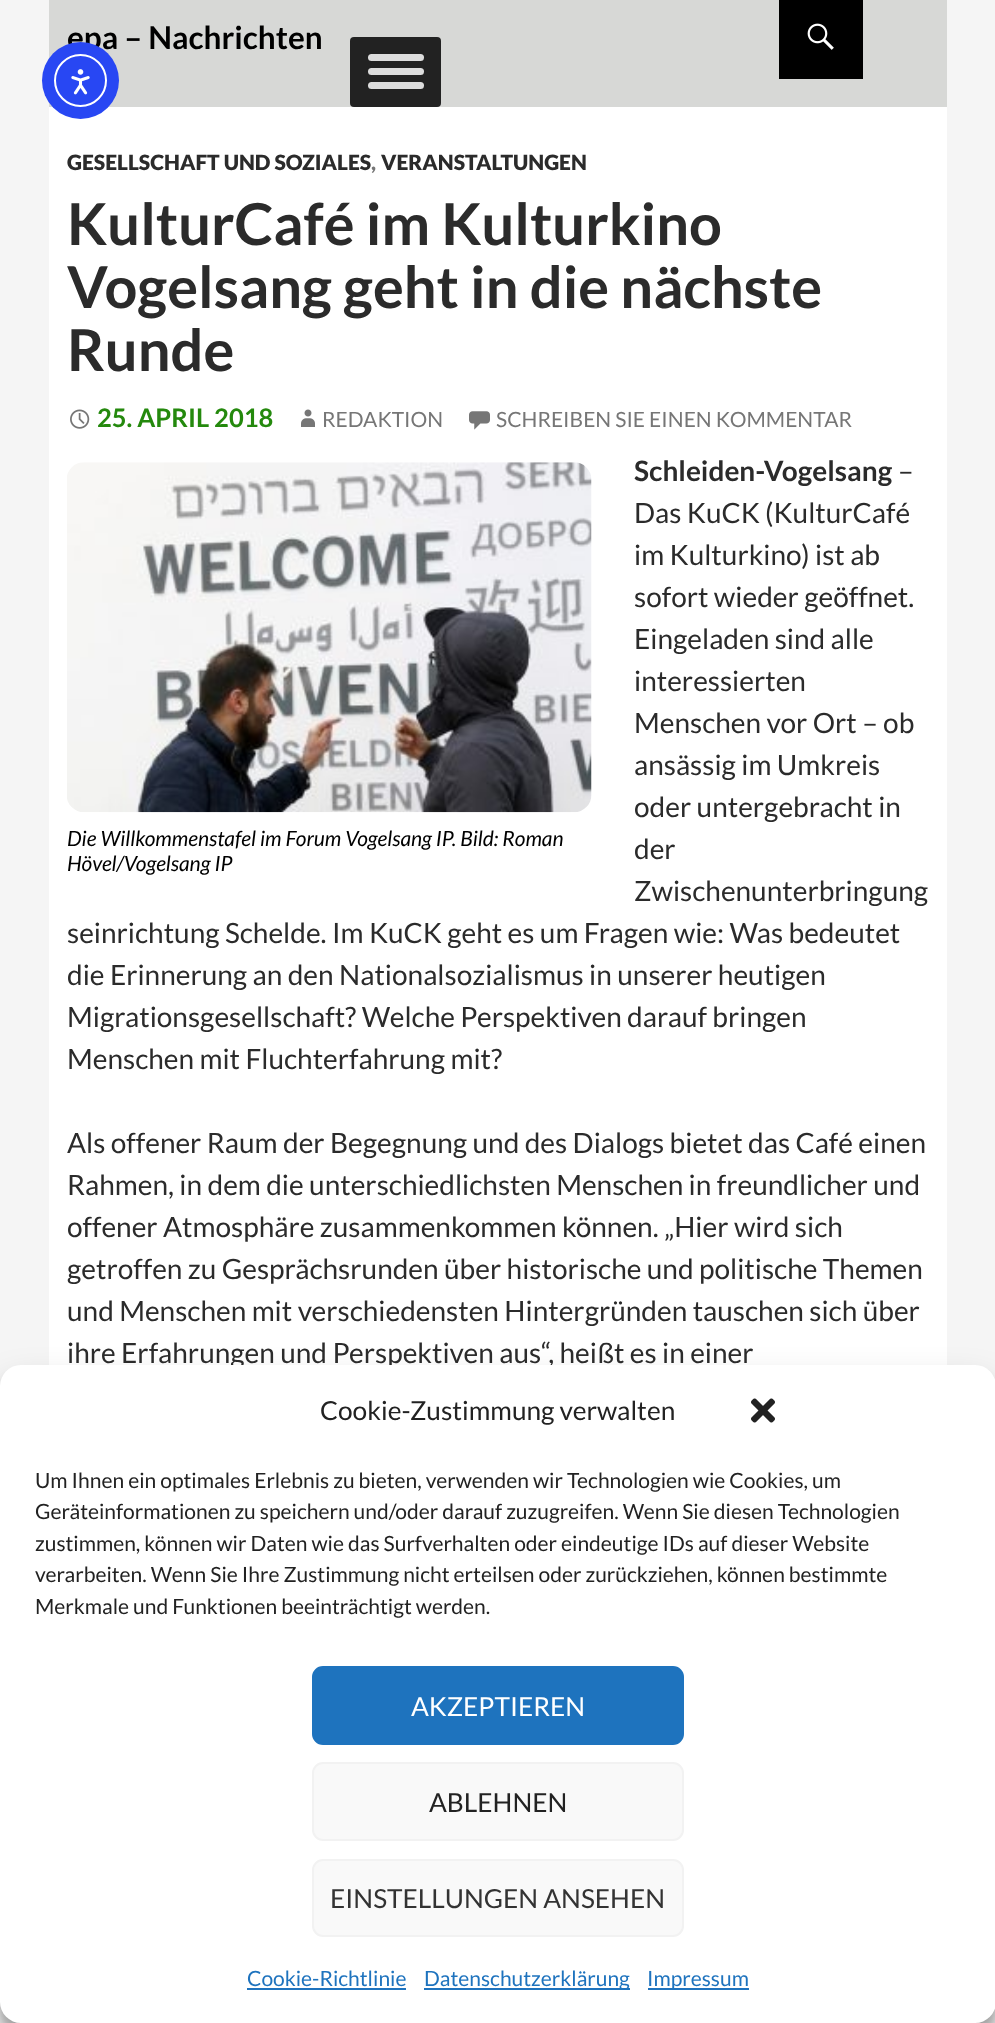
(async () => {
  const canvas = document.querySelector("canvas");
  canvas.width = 995;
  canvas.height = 2023;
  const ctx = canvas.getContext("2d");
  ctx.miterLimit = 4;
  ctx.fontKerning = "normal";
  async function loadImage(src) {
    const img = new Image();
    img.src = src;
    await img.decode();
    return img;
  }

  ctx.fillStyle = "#f5f5f5";
  ctx.fillRect(0, 0, 995, 2023);
  ctx.fillStyle = "#ffffff";
  ctx.fillRect(49, 107, 898, 1258);
  ctx.fillStyle = "#d7d8d6";
  ctx.fillRect(49, 0, 898, 107);
  ctx.fillStyle = "#222222";
  ctx.beginPath();
  ctx.roundRect(350, 37, 91, 70, 4);
  ctx.fill();
  ctx.fillStyle = "#dddddd";
  ctx.beginPath();
  ctx.roundRect(368, 54, 56, 7, 3.5);
  ctx.fill();
  ctx.beginPath();
  ctx.roundRect(368, 68, 56, 7, 3.5);
  ctx.fill();
  ctx.beginPath();
  ctx.roundRect(368, 82, 56, 7, 3.5);
  ctx.fill();
  ctx.fillStyle = "#000000";
  ctx.fillRect(779, 0, 84, 79);
  ctx.drawImage(await loadImage("img/1.png"), 807, 23, 27, 27);
  ctx.drawImage(await loadImage("img/2.png"), 70, 409, 20, 20);
  ctx.drawImage(await loadImage("img/3.png"), 301, 409, 14, 18);
  ctx.drawImage(await loadImage("img/4.png"), 469, 411, 21, 19);
  ctx.drawImage(await loadImage("img/5.png"), 67, 462, 525, 351);
  ctx.fillStyle = "rgba(0, 0, 0, 0.23)";
  ctx.filter = "blur(5px)";
  ctx.beginPath();
  ctx.roundRect(0, 1376, 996, 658, 21);
  ctx.fill();
  ctx.filter = "none";
  ctx.fillStyle = "rgba(0, 0, 0, 0.19)";
  ctx.filter = "blur(17.5px)";
  ctx.beginPath();
  ctx.roundRect(0, 1383, 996, 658, 21);
  ctx.fill();
  ctx.filter = "none";
  ctx.font = "bold 31.5px Lato";
  ctx.fillStyle = "#000000";
  ctx.fillText("epa – Nachrichten", 67, 49);
  ctx.font = "900 21px Lato";
  ctx.fillStyle = "#2b2b2b";
  ctx.fillText("GESELLSCHAFT UND SOZIALES", 67, 170);
  ctx.fillStyle = "#767676";
  ctx.fillText(",", 371, 170);
  ctx.fillStyle = "#2b2b2b";
  ctx.fillText("VERANSTALTUNGEN", 381, 170);
  ctx.font = "bold 57.75px Lato";
  for (const [text, x, y] of [
    ["KulturCafé im Kulturkino", 67, 245],
    ["Vogelsang geht in die nächste", 67, 308],
    ["Runde", 67, 371],
  ]) {
    ctx.fillText(text, x, y);
  }
  ctx.font = "bold 25.5px Lato";
  ctx.fillStyle = "#24890d";
  ctx.fillText("25. APRIL 2018", 97, 427);
  ctx.font = "21px Lato";
  ctx.fillStyle = "#767676";
  ctx.fillText("REDAKTION", 322, 427);
  ctx.fillText("SCHREIBEN SIE EINEN KOMMENTAR", 496, 427);
  ctx.font = "bold 28px Lato";
  ctx.fillStyle = "#2b2b2b";
  ctx.fillText("Schleiden-Vogelsang", 634, 481);
  ctx.font = "28px Lato";
  for (const [text, x, y] of [
    ["–", 898, 481],
    ["Das KuCK (KulturCafé", 634, 523],
    ["im Kulturkino) ist ab", 634, 565],
    ["sofort wieder geöffnet.", 634, 607],
    ["Eingeladen sind alle", 634, 649],
    ["interessierten", 634, 691],
    ["Menschen vor Ort – ob", 634, 733],
    ["ansässig im Umkreis", 634, 775],
    ["oder untergebracht in", 634, 817],
    ["der", 634, 859],
    ["Zwischenunterbringung", 634, 901],
    ["seinrichtung Schelde. Im KuCK geht es um Fragen wie: Was bedeutet", 67, 943],
    ["die Erinnerung an den Nationalsozialismus in unserer heutigen", 67, 985],
    ["Migrationsgesellschaft? Welche Perspektiven darauf bringen", 67, 1027],
    ["Menschen mit Fluchterfahrung mit?", 67, 1069],
  ]) {
    ctx.fillText(text, x, y);
  }
  ctx.font = "italic 21px Lato";
  ctx.fillStyle = "#000000";
  ctx.fillText("Die Willkommenstafel im Forum Vogelsang IP. Bild: Roman", 67, 846);
  ctx.fillText("Hövel/Vogelsang IP", 67, 871);
  ctx.font = "28px Lato";
  ctx.fillStyle = "#2b2b2b";
  for (const [text, x, y] of [
    ["Als offener Raum der Begegnung und des Dialogs bietet das Café einen", 67, 1153],
    ["Rahmen, in dem die unterschiedlichsten Menschen in freundlicher und", 67, 1195],
    ["offener Atmosphäre zusammenkommen können. „Hier wird sich", 67, 1237],
    ["getroffen zu Gesprächsrunden über historische und politische Themen", 67, 1279],
    ["und Menschen mit verschiedensten Hintergründen tauschen sich über", 67, 1321],
    ["ihre Erfahrungen und Perspektiven aus“, heißt es in einer", 67, 1363],
  ]) {
    ctx.fillText(text, x, y);
  }
  ctx.fillStyle = "#2847f3";
  ctx.beginPath();
  ctx.arc(80.5, 80.5, 38.5, 0, Math.PI * 2);
  ctx.fill();
  ctx.beginPath();
  ctx.arc(80.5, 80.5, 25.5, 0, Math.PI * 2);
  ctx.strokeStyle = "#ffffff";
  ctx.lineWidth = 2;
  ctx.stroke();
  ctx.drawImage(await loadImage("img/6.png"), 71, 69, 19, 26);
  ctx.fillStyle = "#ffffff";
  ctx.beginPath();
  ctx.roundRect(0, 1365, 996, 658, 21);
  ctx.fill();
  ctx.font = "26.25px Lato";
  ctx.fillStyle = "#222222";
  ctx.fillText("Cookie-Zustimmung verwalten", 320, 1420);
  ctx.drawImage(await loadImage("img/7.png"), 751, 1398, 24, 25);
  ctx.font = "21px Lato";
  for (const [text, x, y] of [
    ["Um Ihnen ein optimales Erlebnis zu bieten, verwenden wir Technologien wie Cookies, um", 35, 1488],
    ["Geräteinformationen zu speichern und/oder darauf zuzugreifen. Wenn Sie diesen Technologien", 35, 1519],
    ["zustimmen, können wir Daten wie das Surfverhalten oder eindeutige IDs auf dieser Website", 35, 1551],
    ["verarbeiten. Wenn Sie Ihre Zustimmung nicht erteilsen oder zurückziehen, können bestimmte", 35, 1582],
    ["Merkmale und Funktionen beeinträchtigt werden.", 35, 1614],
  ]) {
    ctx.fillText(text, x, y);
  }
  ctx.fillStyle = "#1e73be";
  ctx.beginPath();
  ctx.roundRect(313, 1667, 370, 77, 10);
  ctx.fill();
  ctx.strokeStyle = "#1e73be";
  ctx.stroke();
  ctx.font = "26.25px Lato";
  ctx.fillStyle = "#ffffff";
  ctx.fillText("AKZEPTIEREN", 411, 1716);
  ctx.fillStyle = "#f9f9f9";
  ctx.beginPath();
  ctx.roundRect(313, 1763, 370, 77, 10);
  ctx.fill();
  ctx.strokeStyle = "#f2f2f2";
  ctx.stroke();
  ctx.fillStyle = "#222222";
  ctx.fillText("ABLEHNEN", 429, 1812);
  ctx.fillStyle = "#f9f9f9";
  ctx.beginPath();
  ctx.roundRect(313, 1860, 370, 76, 10);
  ctx.fill();
  ctx.stroke();
  ctx.fillStyle = "#333333";
  ctx.fillText("EINSTELLUNGEN ANSEHEN", 330, 1908);
  ctx.font = "21px Lato";
  ctx.fillStyle = "#1e73be";
  ctx.fillText("Cookie-Richtlinie", 247, 1986);
  ctx.fillRect(247, 1988, 159, 2);
  ctx.fillRect(424, 1988, 206, 2);
  ctx.fillText("Datenschutzerklärung", 424, 1986);
  ctx.fillRect(648, 1988, 101, 2);
  ctx.fillText("Impressum", 647, 1986);
})();
